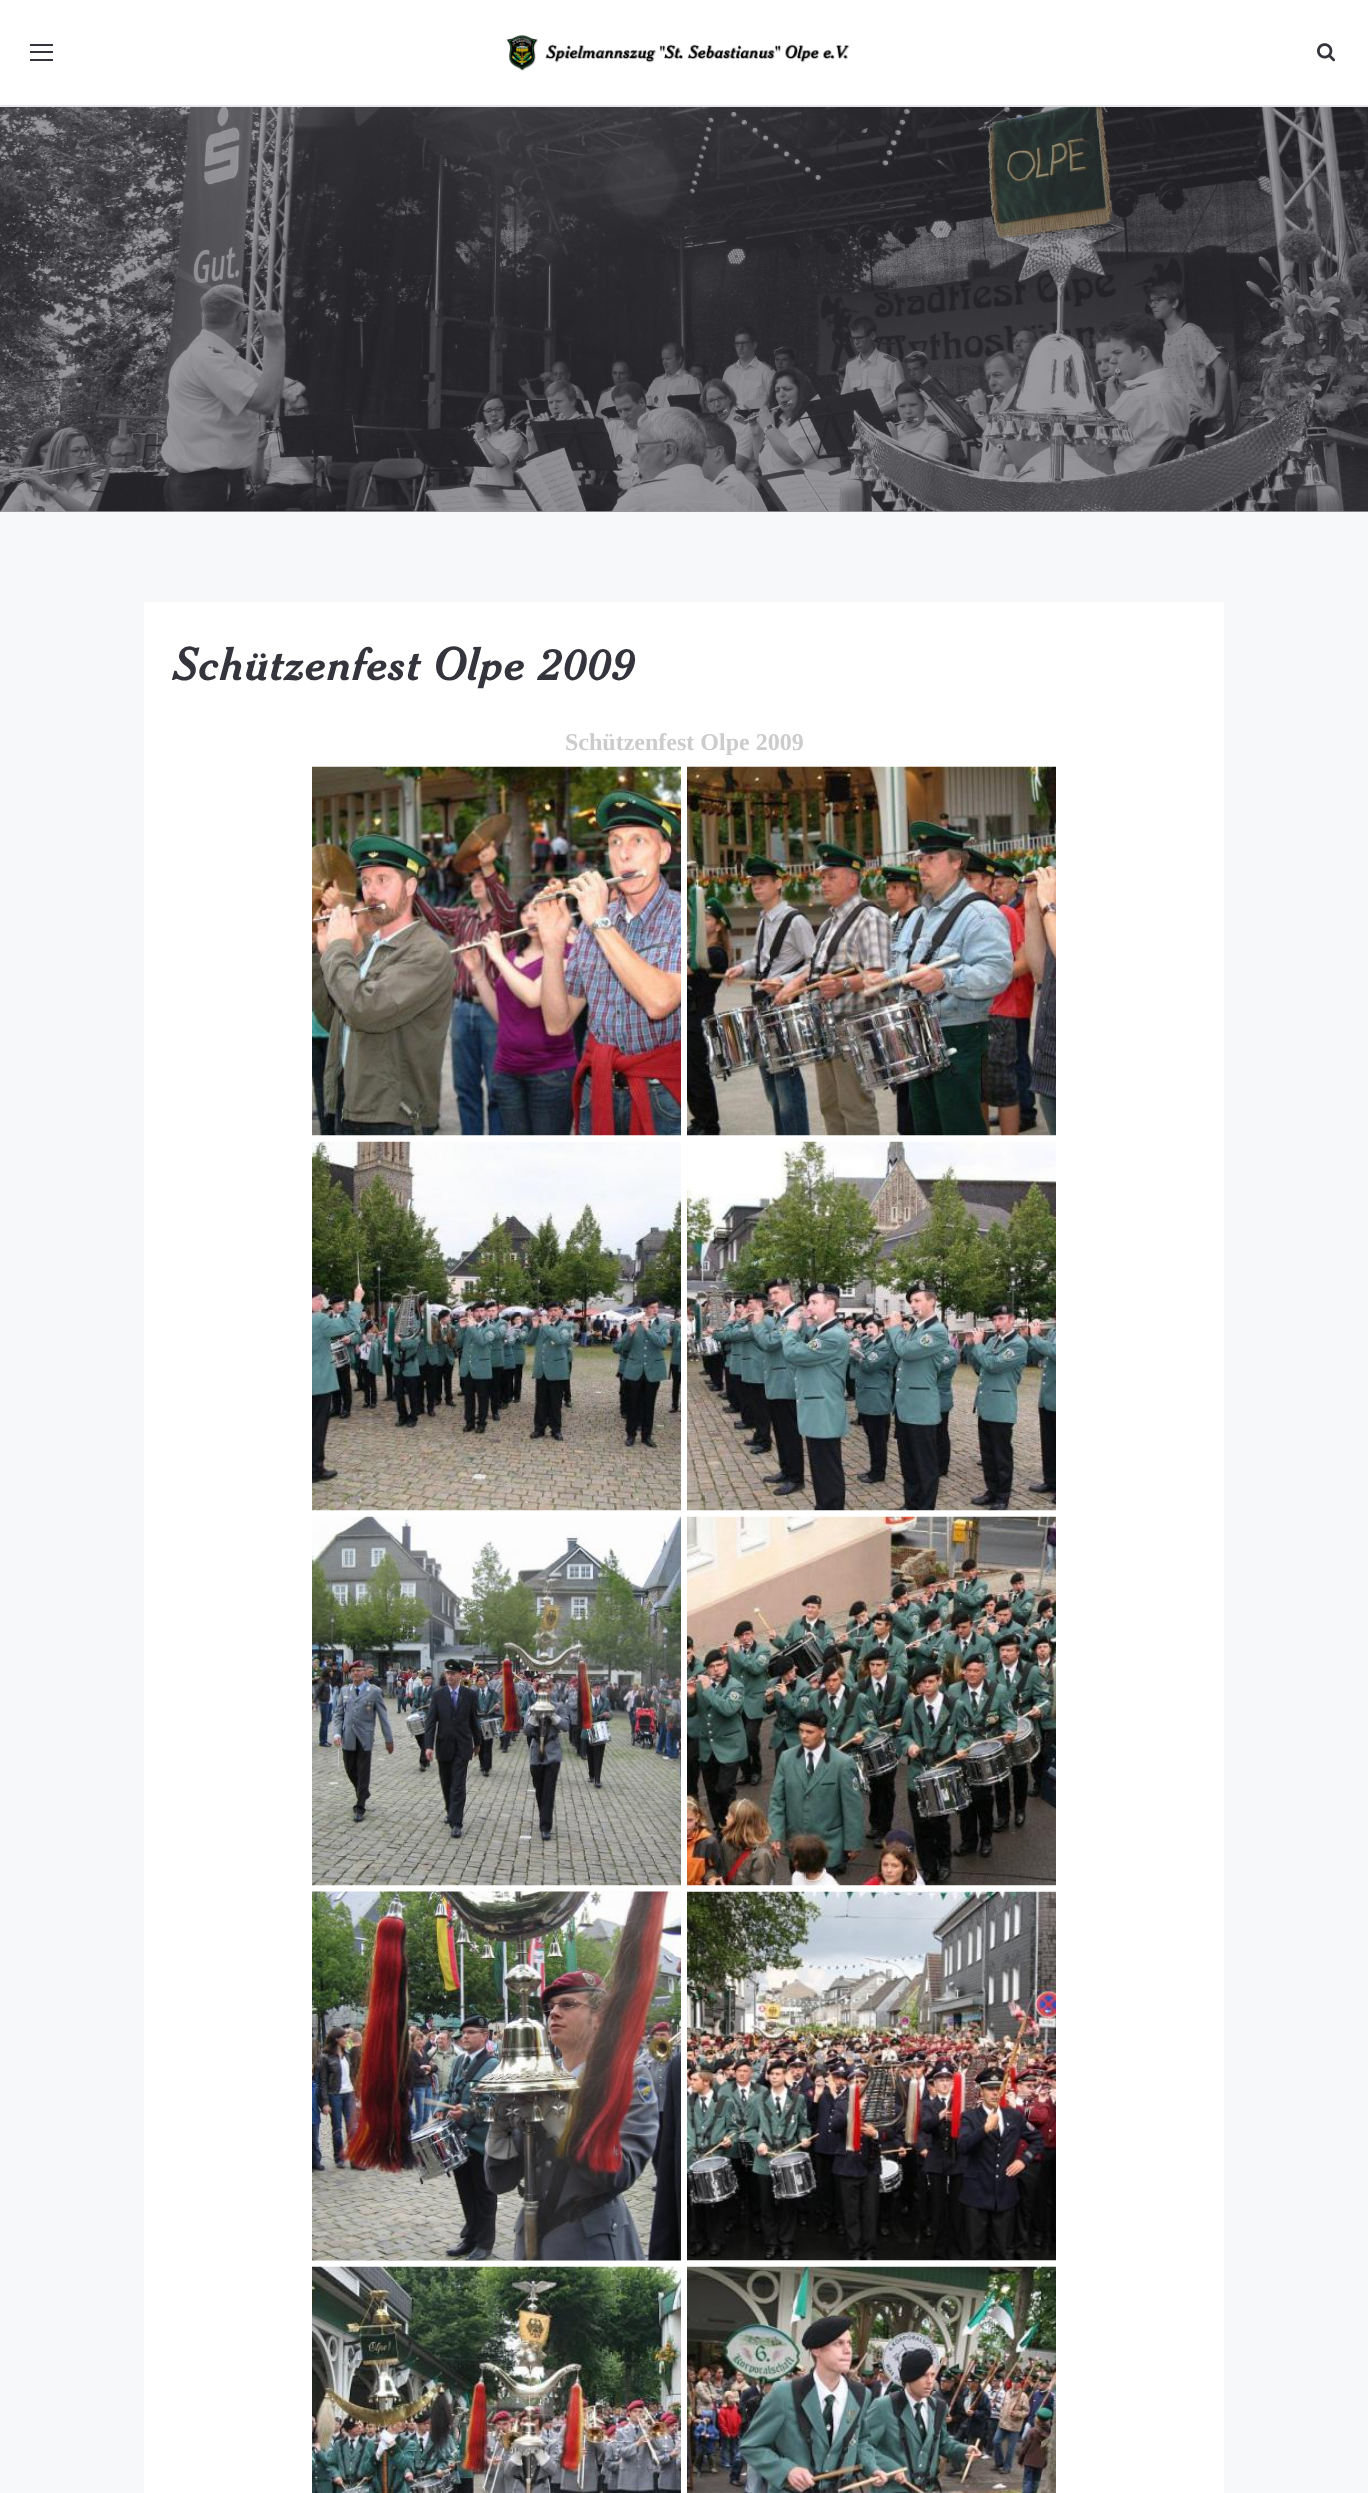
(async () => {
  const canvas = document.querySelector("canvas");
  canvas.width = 1368;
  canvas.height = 2493;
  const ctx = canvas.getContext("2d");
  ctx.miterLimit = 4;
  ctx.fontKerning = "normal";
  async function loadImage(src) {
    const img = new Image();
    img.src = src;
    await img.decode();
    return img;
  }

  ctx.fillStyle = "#9a9a9e";
  ctx.fillRect(0, 0, 1368, 2493);
  for (const [x, y, w, h, color] of [
    [0, 0, 1368, 105, "#ffffff"],
    [0, 105, 1368, 2, "#e8e8ec"],
    [30, 59, 23, 2, "#34343c"],
    [30, 44, 23, 2, "#34343c"],
    [30, 51, 23, 2, "#34343c"],
  ]) {
    ctx.fillStyle = color;
    ctx.fillRect(x, y, w, h);
  }
  ctx.drawImage(await loadImage("img/1.png"), 506, 35, 344, 36);
  ctx.drawImage(await loadImage("img/2.png"), 1317, 43, 19, 19);
  ctx.drawImage(await loadImage("img/3.png"), 0, 107, 1368, 405);
  ctx.fillStyle = "#f7f8fa";
  ctx.fillRect(0, 512, 1368, 1981);
  ctx.fillStyle = "#ffffff";
  ctx.fillRect(144, 602, 1080, 1891);
  ctx.drawImage(await loadImage("img/4.png"), 312, 766, 369, 370);
  ctx.drawImage(await loadImage("img/5.png"), 687, 766, 369, 370);
  ctx.drawImage(await loadImage("img/6.png"), 312, 1141, 369, 370);
  ctx.drawImage(await loadImage("img/7.png"), 687, 1141, 369, 370);
  ctx.drawImage(await loadImage("img/8.png"), 312, 1516, 369, 370);
  ctx.drawImage(await loadImage("img/9.png"), 687, 1516, 369, 370);
  ctx.drawImage(await loadImage("img/10.png"), 312, 1891, 369, 370);
  ctx.drawImage(await loadImage("img/11.png"), 687, 1891, 369, 370);
  ctx.drawImage(await loadImage("img/12.png"), 312, 2266, 369, 227);
  ctx.drawImage(await loadImage("img/13.png"), 687, 2266, 369, 227);
  ctx.font = "bold 45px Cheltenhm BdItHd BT";
  ctx.fillStyle = "#34343c";
  ctx.fillText("Schützenfest Olpe 2009", 174, 680);
  ctx.font = "bold 24px Liberation Serif";
  ctx.fillStyle = "#cccccc";
  ctx.fillText("Schützenfest Olpe 2009", 565, 750);
})();
